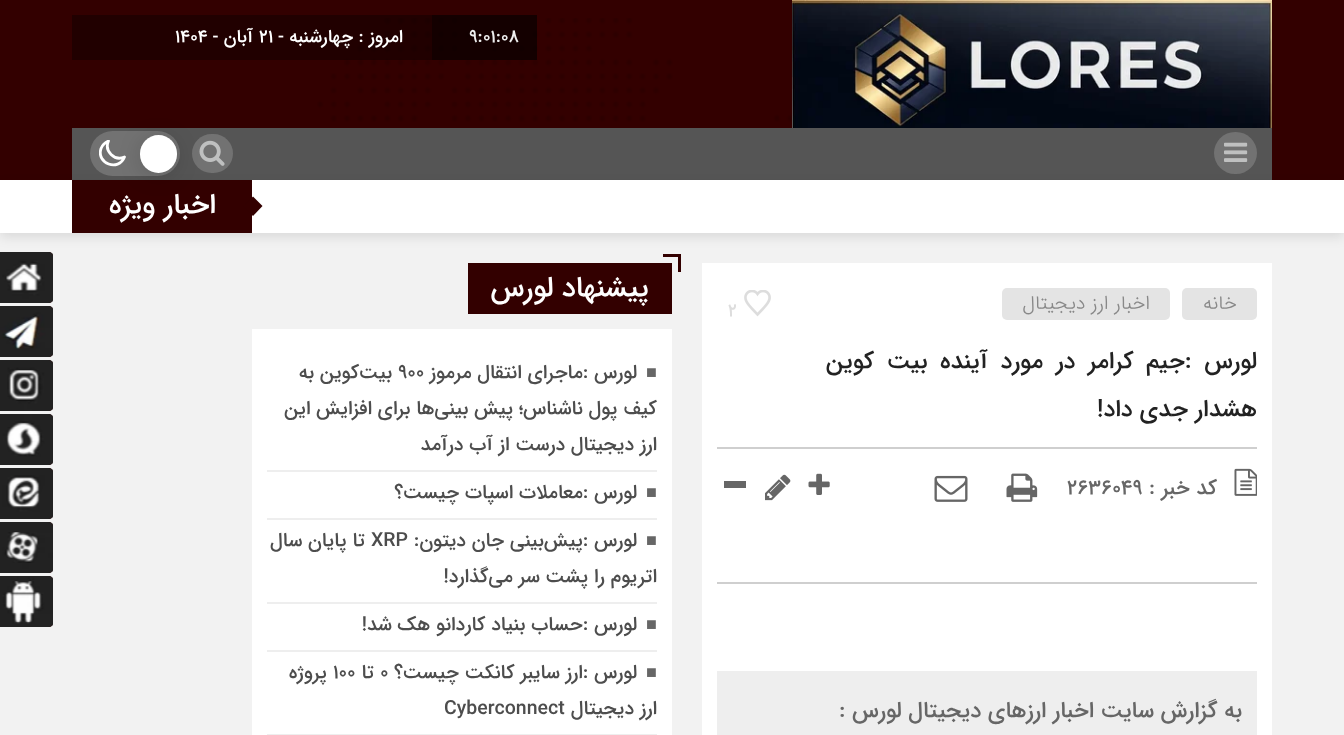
(async () => {
  const canvas = document.querySelector("canvas");
  canvas.width = 1344;
  canvas.height = 735;
  const ctx = canvas.getContext("2d");
  ctx.miterLimit = 4;
  ctx.fontKerning = "normal";
  async function loadImage(src) {
    const img = new Image();
    img.src = src;
    await img.decode();
    return img;
  }
  let path;

  ctx.fillStyle = "#f2f2f2";
  ctx.fillRect(0, 0, 1344, 735);
  ctx.fillStyle = "#330000";
  ctx.fillRect(0, 0, 1344, 180);
  ctx.drawImage(await loadImage("img/1.png"), 317, 18, 475, 104);
  ctx.drawImage(await loadImage("img/2.png"), 792, 0, 480, 128);
  for (const [x, y, w, h, color] of [
    [432, 15, 105, 45, "rgba(0, 0, 0, 0.6)"],
    [72, 15, 360, 45, "rgba(0, 0, 0, 0.35)"],
    [72, 128, 1200, 52, "#555555"],
  ]) {
    ctx.fillStyle = color;
    ctx.fillRect(x, y, w, h);
  }
  ctx.fillStyle = "#727272";
  ctx.beginPath();
  ctx.roundRect(1214, 132, 43, 42, 21);
  ctx.fill();
  ctx.drawImage(await loadImage("img/3.png"), 1224, 142, 24, 20);
  ctx.beginPath();
  ctx.roundRect(192, 134, 41, 39, 19.5);
  ctx.fill();
  ctx.drawImage(await loadImage("img/4.png"), 199, 140, 26, 26);
  ctx.fillStyle = "rgba(0, 0, 0, 0.1)";
  ctx.filter = "blur(6px)";
  ctx.beginPath();
  ctx.rect(0, 185, 1344, 52);
  ctx.fill();
  ctx.filter = "none";
  ctx.fillStyle = "#727272";
  ctx.beginPath();
  ctx.roundRect(90, 131, 90, 45, 22.5);
  ctx.fill();
  ctx.save();
  ctx.beginPath();
  ctx.rect(99, 140, 27, 27);
  ctx.clip();
  path = new Path2D("M124.5 157C114.5 161.5 104 151 108.5 141C105 142.5 102.5 145 101 148.5C96 163.5 118.5 172 124.5 157Z");
  ctx.strokeStyle = "#ffffff";
  ctx.lineWidth = 2.8;
  ctx.lineCap = "round";
  ctx.lineJoin = "round";
  ctx.stroke(path);
  ctx.restore();
  ctx.fillStyle = "#ffffff";
  ctx.fillRect(0, 180, 1344, 53);
  ctx.fillStyle = "#330000";
  ctx.fillRect(74, 180, 178, 53);
  ctx.fillStyle = "rgba(0, 0, 0, 0.15)";
  ctx.filter = "blur(11px)";
  ctx.beginPath();
  ctx.roundRect(140, 138, 37, 38, 18.5);
  ctx.fill();
  ctx.filter = "none";
  ctx.fillStyle = "#ffffff";
  ctx.beginPath();
  ctx.roundRect(140, 135, 37, 38, 18.5);
  ctx.fill();
  ctx.fillStyle = "#310000";
  ctx.fillRect(72, 180, 2, 53);
  ctx.fillStyle = "#330000";
  path = new Path2D("M253 196.5L262.5 206L253 216L243 206Z");
  ctx.fill(path);
  ctx.fillStyle = "#ffffff";
  ctx.fillRect(702, 263, 570, 472);
  ctx.fillStyle = "#e4e4e4";
  ctx.beginPath();
  ctx.roundRect(1182, 288, 75, 32, 5);
  ctx.fill();
  ctx.beginPath();
  ctx.roundRect(1002, 288, 168, 32, 5);
  ctx.fill();
  ctx.drawImage(await loadImage("img/5.png"), 744, 290, 27, 27);
  ctx.fillStyle = "#cfcfcf";
  ctx.fillRect(717, 447, 540, 2);
  ctx.fillRect(717, 582, 540, 2);
  ctx.drawImage(await loadImage("img/6.png"), 1234, 468, 23, 28);
  ctx.drawImage(await loadImage("img/7.png"), 1006, 473, 32, 29);
  ctx.drawImage(await loadImage("img/8.png"), 934, 475, 34, 27);
  ctx.drawImage(await loadImage("img/9.png"), 808, 473, 22, 22);
  ctx.drawImage(await loadImage("img/10.png"), 765, 474, 26, 27);
  for (const [x, y, w, h, color] of [
    [724, 481, 22, 7, "#666666"],
    [717, 671, 540, 64, "#eeeeee"],
    [468, 263, 204, 51, "#330000"],
    [663, 254, 18, 3, "#330000"],
    [678, 254, 3, 18, "#330000"],
    [252, 329, 420, 406, "#ffffff"],
    [267, 470, 390, 2, "#eeeeee"],
    [267, 518, 390, 2, "#eeeeee"],
    [267, 602, 390, 2, "#eeeeee"],
    [267, 650, 390, 2, "#eeeeee"],
    [267, 734, 390, 1, "#eeeeee"],
  ]) {
    ctx.fillStyle = color;
    ctx.fillRect(x, y, w, h);
  }
  ctx.fillStyle = "#330000";
  path = new Path2D("M-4 252H49C51 252 53 254 53 256V299C53 301 51 303 49 303H-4Z");
  ctx.fill(path);
  ctx.drawImage(await loadImage("img/11.png"), 0, 252, 53, 51);
  path = new Path2D("M-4 306H49C51 306 53 308 53 310V353C53 355 51 357 49 357H-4Z");
  ctx.fill(path);
  ctx.drawImage(await loadImage("img/12.png"), 0, 306, 53, 51);
  path = new Path2D("M-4 360H49C51 360 53 362 53 364V407C53 409 51 411 49 411H-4Z");
  ctx.fill(path);
  ctx.drawImage(await loadImage("img/13.png"), 0, 360, 53, 51);
  path = new Path2D("M-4 414H49C51 414 53 416 53 418V461C53 463 51 465 49 465H-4Z");
  ctx.fill(path);
  ctx.drawImage(await loadImage("img/14.png"), 0, 414, 53, 51);
  path = new Path2D("M-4 468H49C51 468 53 470 53 472V515C53 517 51 519 49 519H-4Z");
  ctx.fill(path);
  ctx.drawImage(await loadImage("img/15.png"), 0, 468, 53, 51);
  path = new Path2D("M-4 522H49C51 522 53 524 53 526V569C53 571 51 573 49 573H-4Z");
  ctx.fill(path);
  ctx.drawImage(await loadImage("img/16.png"), 0, 522, 53, 51);
  path = new Path2D("M-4 576H49C51 576 53 578 53 580V623C53 625 51 627 49 627H-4Z");
  ctx.fill(path);
  ctx.drawImage(await loadImage("img/17.png"), 0, 576, 53, 51);
  ctx.font = "500 18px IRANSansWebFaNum";
  ctx.fillStyle = "#eeeeee";
  ctx.fillText("9:01:08", 469, 42);
  ctx.direction = "rtl";
  ctx.fillStyle = "#ffffff";
  ctx.fillText("امروز : چهارشنبه -", 403, 42);
  ctx.direction = "ltr";
  ctx.fillText("۲۱", 259, 42);
  ctx.direction = "rtl";
  ctx.fillText("آبان -", 253, 42);
  ctx.direction = "ltr";
  ctx.fillText("۱۴۰۴", 175, 42);
  ctx.direction = "rtl";
  ctx.font = "500 28.5px IRANSansWebFaNum";
  ctx.fillText("اخبار ویژه", 216, 213);
  ctx.font = "300 19.5px IRANSansWebFaNum";
  ctx.fillStyle = "#888888";
  ctx.fillText("خانه", 1237, 309);
  ctx.fillText("اخبار ارز دیجیتال", 1150, 309);
  ctx.direction = "ltr";
  ctx.font = "500 18px IRANSansWebFaNum";
  ctx.fillStyle = "#dddddd";
  ctx.fillText("2", 728, 316);
  ctx.wordSpacing = "5.5px";
  ctx.direction = "rtl";
  ctx.font = "500 24px IRANSansWebFaNum";
  ctx.fillStyle = "#222222";
  ctx.fillText("لورس :جیم کرامر در مورد آینده بیت کوین", 1257, 368);
  ctx.wordSpacing = "0px";
  ctx.fillText("هشدار جدی داد!", 1257, 416);
  ctx.font = "500 21px IRANSansWebFaNum";
  ctx.fillStyle = "#666666";
  ctx.fillText("کد خبر :", 1217, 494);
  ctx.direction = "ltr";
  ctx.fillText("2636049", 1067, 494);
  ctx.direction = "rtl";
  ctx.font = "500 22.5px IRANSansWebFaNum";
  ctx.fillText("به گزارش سایت اخبار ارزهای دیجیتال لورس :", 1242, 717);
  ctx.font = "500 28.5px IRANSansWebFaNum";
  ctx.fillStyle = "#ffffff";
  ctx.fillText("پیشنهاد لورس", 649, 296);
  ctx.direction = "ltr";
  ctx.font = "18px Liberation Sans";
  ctx.fillStyle = "#666666";
  ctx.fillText("■", 646, 378);
  ctx.direction = "rtl";
  ctx.font = "500 19.5px IRANSansWebFaNum";
  ctx.fillStyle = "#4d4d4d";
  ctx.fillText("لورس :ماجرای انتقال مرموز", 637, 378);
  ctx.direction = "ltr";
  ctx.fillText("۹۰۰", 398, 378);
  ctx.direction = "rtl";
  for (const [text, x, y] of [
    ["بیت‌کوین به", 392, 378],
    ["کیف پول ناشناس؛ پیش بینی‌ها برای افزایش این", 657, 414],
    ["ارز دیجیتال درست از آب درآمد", 657, 450],
  ]) {
    ctx.fillText(text, x, y);
  }
  ctx.direction = "ltr";
  ctx.font = "18px Liberation Sans";
  ctx.fillStyle = "#666666";
  ctx.fillText("■", 646, 498);
  ctx.direction = "rtl";
  ctx.font = "500 19.5px IRANSansWebFaNum";
  ctx.fillStyle = "#4d4d4d";
  ctx.fillText("لورس :معاملات اسپات چیست؟", 637, 498);
  ctx.direction = "ltr";
  ctx.font = "18px Liberation Sans";
  ctx.fillStyle = "#666666";
  ctx.fillText("■", 646, 546);
  ctx.direction = "rtl";
  ctx.font = "500 19.5px IRANSansWebFaNum";
  ctx.fillStyle = "#4d4d4d";
  ctx.fillText("لورس :پیش‌بینی جان دیتون:", 637, 546);
  ctx.direction = "ltr";
  ctx.fillText("XRP", 371, 546);
  ctx.direction = "rtl";
  ctx.fillText("تا پایان سال", 365, 546);
  ctx.fillText("اتریوم را پشت سر می‌گذارد!", 657, 582);
  ctx.direction = "ltr";
  ctx.font = "18px Liberation Sans";
  ctx.fillStyle = "#666666";
  ctx.fillText("■", 646, 630);
  ctx.direction = "rtl";
  ctx.font = "500 19.5px IRANSansWebFaNum";
  ctx.fillStyle = "#4d4d4d";
  ctx.fillText("لورس :حساب بنیاد کاردانو هک شد!", 637, 630);
  ctx.direction = "ltr";
  ctx.font = "18px Liberation Sans";
  ctx.fillStyle = "#666666";
  ctx.fillText("■", 646, 678);
  ctx.direction = "rtl";
  ctx.font = "500 19.5px IRANSansWebFaNum";
  ctx.fillStyle = "#4d4d4d";
  ctx.fillText("لورس :ارز سایبر کانکت چیست؟", 637, 678);
  ctx.direction = "ltr";
  ctx.fillText("۰", 380, 678);
  ctx.direction = "rtl";
  ctx.fillText("تا", 374, 678);
  ctx.direction = "ltr";
  ctx.fillText("۱۰۰", 333, 678);
  ctx.direction = "rtl";
  ctx.fillText("پروژه", 327, 678);
  ctx.fillText("ارز دیجیتال", 657, 714);
  ctx.direction = "ltr";
  ctx.fillText("Cyberconnect", 444, 714);
})();
